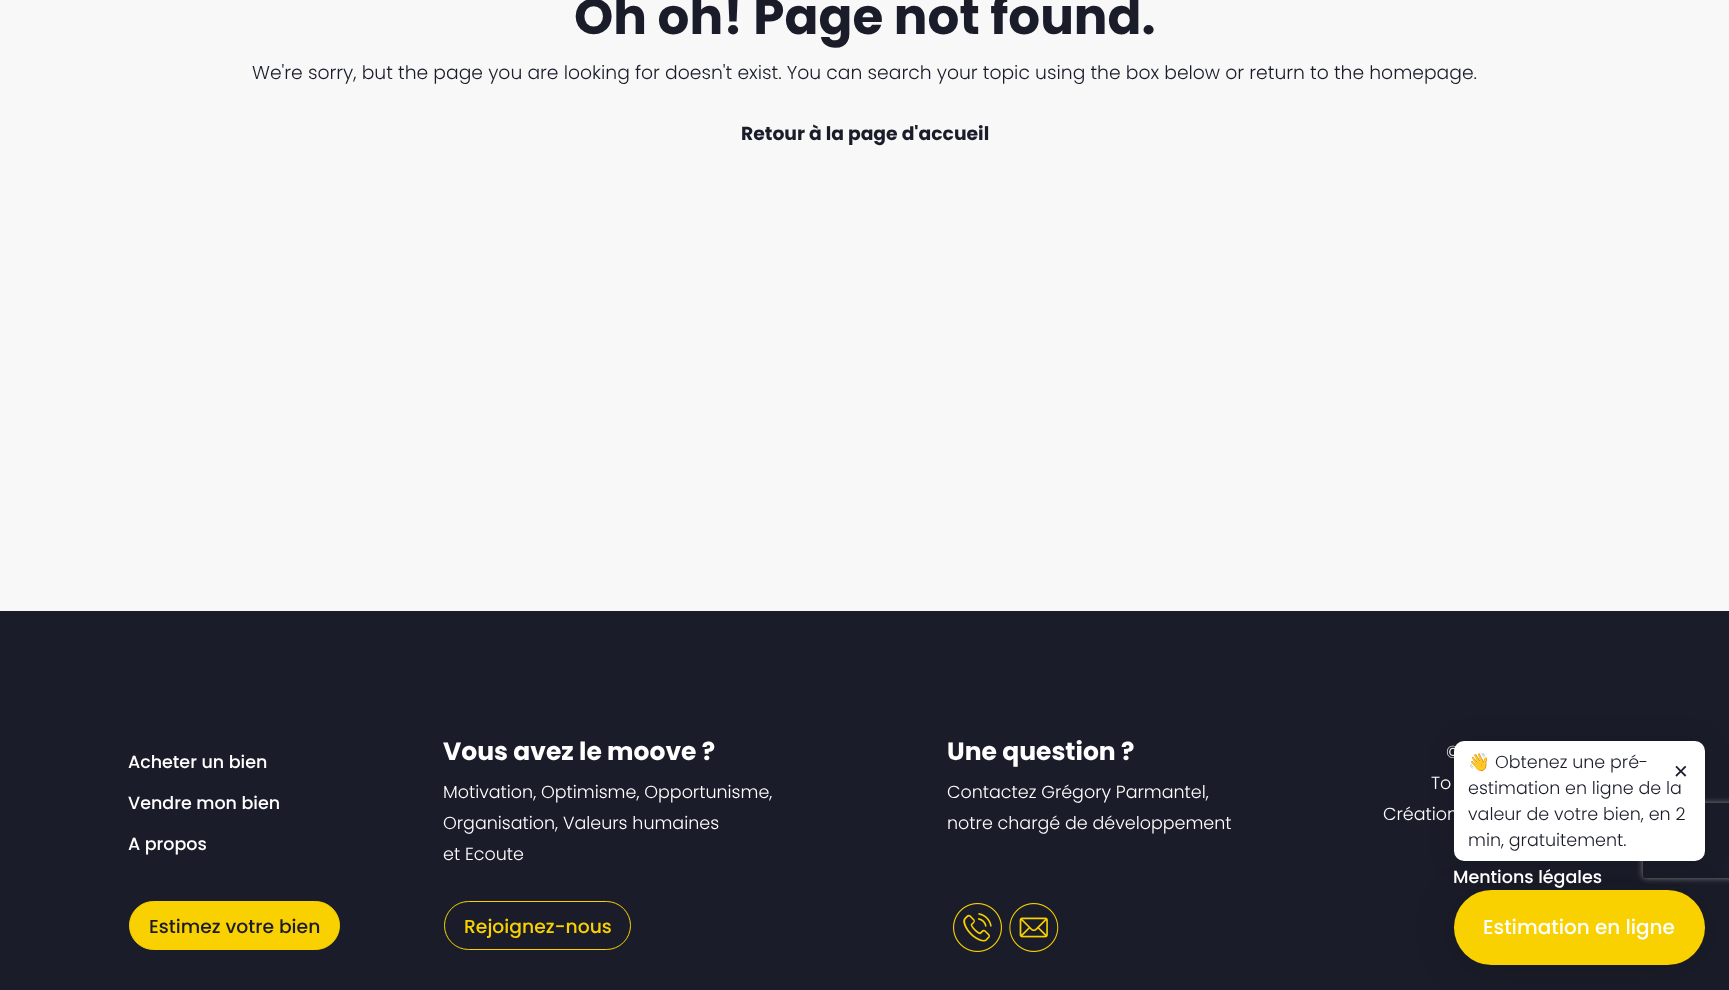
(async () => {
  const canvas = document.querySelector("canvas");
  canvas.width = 1729;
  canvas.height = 990;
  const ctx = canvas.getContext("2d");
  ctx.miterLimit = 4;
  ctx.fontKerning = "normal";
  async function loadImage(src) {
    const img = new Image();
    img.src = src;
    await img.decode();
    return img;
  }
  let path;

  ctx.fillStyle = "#f8f8f8";
  ctx.fillRect(0, 0, 1729, 990);
  ctx.fillStyle = "#1a1c29";
  ctx.fillRect(0, 611, 1729, 379);
  ctx.fillStyle = "#f9d100";
  ctx.beginPath();
  ctx.roundRect(129.5, 901.5, 210, 48, 24);
  ctx.fill();
  ctx.strokeStyle = "#f9d100";
  ctx.stroke();
  ctx.beginPath();
  ctx.roundRect(444.5, 901.5, 186, 48, 24);
  ctx.stroke();
  ctx.drawImage(await loadImage("img/1.png"), 953, 903, 49, 49);
  ctx.drawImage(await loadImage("img/2.png"), 1009, 903, 50, 49);
  ctx.fillStyle = "rgba(0, 0, 0, 0.16)";
  ctx.filter = "blur(20px)";
  ctx.beginPath();
  ctx.roundRect(1454, 893, 251, 75, 37.5);
  ctx.fill();
  ctx.filter = "none";
  ctx.fillStyle = "#f9d100";
  ctx.beginPath();
  ctx.roundRect(1454, 890, 251, 75, 37.5);
  ctx.fill();
  ctx.fillStyle = "rgba(0, 0, 0, 0.1)";
  ctx.filter = "blur(12.5px)";
  ctx.beginPath();
  ctx.roundRect(1453, 740, 253, 123, 11);
  ctx.fill();
  ctx.filter = "none";
  ctx.save();
  path = new Path2D("M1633 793H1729V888H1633ZM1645.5 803H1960.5C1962 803 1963 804 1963 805.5V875.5C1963 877 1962 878 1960.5 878H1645.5C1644 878 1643 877 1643 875.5V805.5C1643 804 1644 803 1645.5 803Z");
  ctx.clip(path, "evenodd");
  ctx.fillStyle = "#808080";
  ctx.filter = "blur(3px)";
  ctx.beginPath();
  ctx.roundRect(1643, 803, 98, 75, 2.5);
  ctx.fill();
  ctx.filter = "none";
  ctx.restore();
  ctx.fillStyle = "#ffffff";
  ctx.beginPath();
  ctx.roundRect(1454, 741, 251, 120, 10);
  ctx.fill();
  ctx.font = "bold 50px Poppins";
  ctx.fillStyle = "#1a1c29";
  ctx.fillText("Oh oh! Page not found.", 574, 34);
  ctx.font = "300 18.75px Poppins";
  ctx.fillText("We're sorry, but the page you are looking for doesn't exist. You can search your topic using the box below or return to the homepage.", 252, 79);
  ctx.font = "bold 18.75px Poppins";
  ctx.fillText("Retour à la page d'accueil", 741, 140);
  ctx.font = "500 17.5px Poppins";
  ctx.fillStyle = "#ffffff";
  for (const [text, x, y] of [
    ["Acheter un bien", 128, 768],
    ["Vendre mon bien", 128, 809],
    ["A propos", 128, 850],
  ]) {
    ctx.fillText(text, x, y);
  }
  ctx.font = "500 18.75px Poppins";
  ctx.fillStyle = "#1a1c29";
  ctx.fillText("Estimez votre bien", 149, 933);
  ctx.font = "bold 25px Poppins";
  ctx.fillStyle = "#ffffff";
  ctx.fillText("Vous avez le moove ?", 443, 760);
  ctx.font = "300 17.5px Poppins";
  for (const [text, x, y] of [
    ["Motivation, Optimisme, Opportunisme,", 443, 798],
    ["Organisation, Valeurs humaines", 443, 829],
    ["et Ecoute", 443, 860],
  ]) {
    ctx.fillText(text, x, y);
  }
  ctx.font = "500 18.75px Poppins";
  ctx.fillStyle = "#f9d100";
  ctx.fillText("Rejoignez-nous", 464, 933);
  ctx.font = "bold 25px Poppins";
  ctx.fillStyle = "#ffffff";
  ctx.fillText("Une question ?", 947, 760);
  ctx.font = "300 17.5px Poppins";
  for (const [text, x, y] of [
    ["Contactez Grégory Parmantel,", 947, 798],
    ["notre chargé de développement", 947, 829],
    ["©", 1446, 758],
    ["To", 1431, 789],
    ["Création", 1383, 820],
  ]) {
    ctx.fillText(text, x, y);
  }
  ctx.font = "500 17.5px Poppins";
  ctx.fillText("Mentions légales", 1453, 883);
  ctx.font = "17.5px Noto Color Emoji";
  ctx.fillStyle = "#1a1c29";
  ctx.fillText("👋", 1468, 768);
  ctx.font = "300 17.5px Poppins";
  for (const [text, x, y] of [
    ["Obtenez une pré-", 1495, 768],
    ["estimation en ligne de la", 1468, 794],
    ["valeur de votre bien, en 2", 1468, 820],
    ["min, gratuitement.", 1468, 846],
  ]) {
    ctx.fillText(text, x, y);
  }
  ctx.font = "18.75px DejaVu Sans";
  ctx.fillText("✕", 1673, 778);
  ctx.font = "500 20px Poppins";
  ctx.fillStyle = "#ffffff";
  ctx.fillText("Estimation en ligne", 1483, 934);
})();
